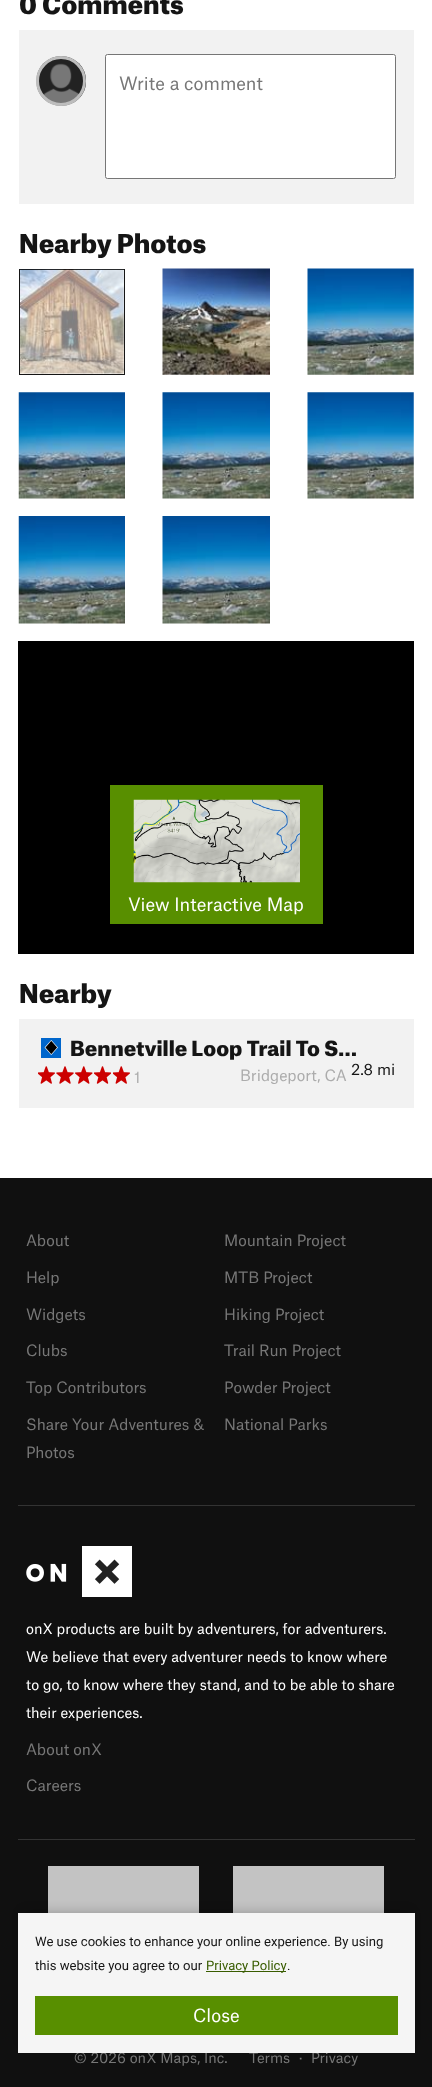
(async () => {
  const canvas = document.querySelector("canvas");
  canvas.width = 432;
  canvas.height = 2087;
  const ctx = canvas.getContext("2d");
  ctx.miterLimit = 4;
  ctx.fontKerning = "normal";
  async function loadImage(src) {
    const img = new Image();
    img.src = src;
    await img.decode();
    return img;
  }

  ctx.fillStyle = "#ffffff";
  ctx.fillRect(0, 0, 432, 2087);
  ctx.fillStyle = "#f2f2f2";
  ctx.fillRect(19, 30, 395, 174);
  ctx.drawImage(await loadImage("img/1.png"), 36, 56, 50, 50);
  ctx.beginPath();
  ctx.arc(61, 81, 23.5, 0, Math.PI * 2);
  ctx.strokeStyle = "#bdbdbd";
  ctx.lineWidth = 3;
  ctx.stroke();
  ctx.fillStyle = "#ffffff";
  ctx.beginPath();
  ctx.roundRect(105.5, 54.5, 290, 124, 2);
  ctx.fill();
  ctx.strokeStyle = "#767676";
  ctx.lineWidth = 1;
  ctx.stroke();
  ctx.strokeStyle = "#151515";
  ctx.strokeRect(19.5, 269.5, 105, 105);
  ctx.drawImage(await loadImage("img/2.png"), 20, 269, 104, 105);
  ctx.drawImage(await loadImage("img/3.png"), 162, 268, 108, 107);
  ctx.drawImage(await loadImage("img/4.png"), 307, 268, 107, 107);
  ctx.drawImage(await loadImage("img/5.png"), 18, 392, 107, 107);
  ctx.drawImage(await loadImage("img/6.png"), 162, 392, 108, 107);
  ctx.drawImage(await loadImage("img/7.png"), 307, 392, 107, 107);
  ctx.drawImage(await loadImage("img/8.png"), 18, 516, 107, 108);
  ctx.drawImage(await loadImage("img/9.png"), 162, 516, 108, 108);
  ctx.fillStyle = "#000000";
  ctx.fillRect(18, 641, 396, 313);
  ctx.fillStyle = "#588f00";
  ctx.fillRect(110, 785, 213, 139);
  ctx.drawImage(await loadImage("img/10.png"), 133, 799, 167, 84);
  ctx.fillStyle = "#f2f2f2";
  ctx.fillRect(19, 1019, 395, 89);
  ctx.drawImage(await loadImage("img/11.png"), 41, 1038, 20, 20);
  ctx.drawImage(await loadImage("img/12.png"), 38, 1066, 17, 18);
  ctx.drawImage(await loadImage("img/13.png"), 56, 1066, 18, 18);
  ctx.drawImage(await loadImage("img/14.png"), 75, 1066, 18, 18);
  ctx.drawImage(await loadImage("img/15.png"), 94, 1066, 17, 18);
  ctx.drawImage(await loadImage("img/12.png"), 113, 1066, 17, 18);
  for (const [x, y, w, h, color] of [
    [0, 1178, 432, 909, "#101010"],
    [18, 1505, 397, 1, "#333333"],
    [18, 1839, 397, 1, "#333333"],
  ]) {
    ctx.fillStyle = color;
    ctx.fillRect(x, y, w, h);
  }
  ctx.drawImage(await loadImage("img/16.png"), 26, 1546, 106, 51);
  ctx.fillStyle = "#c3c3c3";
  ctx.fillRect(48, 1866, 151, 47);
  ctx.fillRect(233, 1866, 151, 47);
  ctx.fillStyle = "rgba(0, 0, 0, 0.25)";
  ctx.filter = "blur(6px)";
  ctx.beginPath();
  ctx.rect(24, 1913, 385, 127);
  ctx.fill();
  ctx.filter = "none";
  ctx.font = "900 25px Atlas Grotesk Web";
  ctx.fillStyle = "#151515";
  ctx.fillText("0 Comments", 19, 14);
  ctx.font = "17.5px Atlas Grotesk Web";
  ctx.fillStyle = "#777777";
  ctx.fillText("Write a comment", 119, 90);
  ctx.font = "900 25px Atlas Grotesk Web";
  ctx.fillStyle = "#151515";
  ctx.fillText("Nearby Photos", 19, 253);
  ctx.font = "17.5px Atlas Grotesk Web";
  ctx.fillStyle = "#ffffff";
  ctx.fillText("View Interactive Map", 128, 911);
  ctx.font = "900 25px Atlas Grotesk Web";
  ctx.fillStyle = "#151515";
  ctx.fillText("Nearby", 19, 1003);
  ctx.font = "900 20px Atlas Grotesk Web";
  ctx.fillText("Bennetville Loop Trail To S…", 70, 1056);
  ctx.font = "15px Atlas Grotesk Web";
  ctx.fillStyle = "#acacac";
  ctx.fillText("1", 134, 1083);
  ctx.fillText("Bridgeport, CA", 240, 1081);
  ctx.fillStyle = "#151515";
  ctx.fillText("2.8", 351, 1075);
  ctx.fillText("mi", 377, 1075);
  ctx.fillStyle = "#777777";
  for (const [text, x, y] of [
    ["About", 26, 1246],
    ["Mountain Project", 224, 1246],
    ["Help", 26, 1283],
    ["MTB Project", 224, 1283],
    ["Widgets", 26, 1320],
    ["Hiking Project", 224, 1320],
    ["Clubs", 26, 1356],
    ["Trail Run Project", 224, 1356],
    ["Top Contributors", 26, 1393],
    ["Powder Project", 224, 1393],
    ["Share Your Adventures &", 26, 1430],
    ["Photos", 26, 1458],
    ["National Parks", 224, 1430],
  ]) {
    ctx.fillText(text, x, y);
  }
  ctx.font = "14px Atlas Grotesk Web";
  ctx.fillStyle = "#ffffff";
  for (const [text, x, y] of [
    ["onX products are built by adventurers, for adventurers.", 26, 1634],
    ["We believe that every adventurer needs to know where", 26, 1662],
    ["to go, to know where they stand, and to be able to share", 26, 1690],
    ["their experiences.", 26, 1718],
  ]) {
    ctx.fillText(text, x, y);
  }
  ctx.font = "15px Atlas Grotesk Web";
  ctx.fillStyle = "#777777";
  ctx.fillText("About onX", 26, 1755);
  ctx.fillText("Careers", 26, 1791);
  ctx.font = "14px Atlas Grotesk Web";
  for (const [text, x, y] of [
    ["© 2026 onX Maps, Inc.", 74, 2063],
    ["Terms", 249, 2063],
    ["·", 299, 2063],
    ["Privacy", 311, 2063],
  ]) {
    ctx.fillText(text, x, y);
  }
  ctx.fillStyle = "#f5f5f5";
  ctx.fillRect(18, 1913, 397, 140);
  ctx.font = "13.1px Roboto";
  ctx.fillStyle = "#151515";
  ctx.fillText("We use cookies to enhance your online experience. By using", 35, 1946);
  ctx.fillText("this website you agree to our", 35, 1970);
  ctx.fillStyle = "#395c00";
  ctx.fillRect(206, 1971, 80, 1);
  ctx.fillText("Privacy Policy", 206, 1970);
  ctx.fillStyle = "#151515";
  ctx.fillText(".", 287, 1970);
  ctx.fillStyle = "#588f00";
  ctx.fillRect(35, 1996, 363, 39);
  ctx.font = "17.5px Atlas Grotesk Web";
  ctx.fillStyle = "#ffffff";
  ctx.fillText("Close", 193, 2022);
})();
